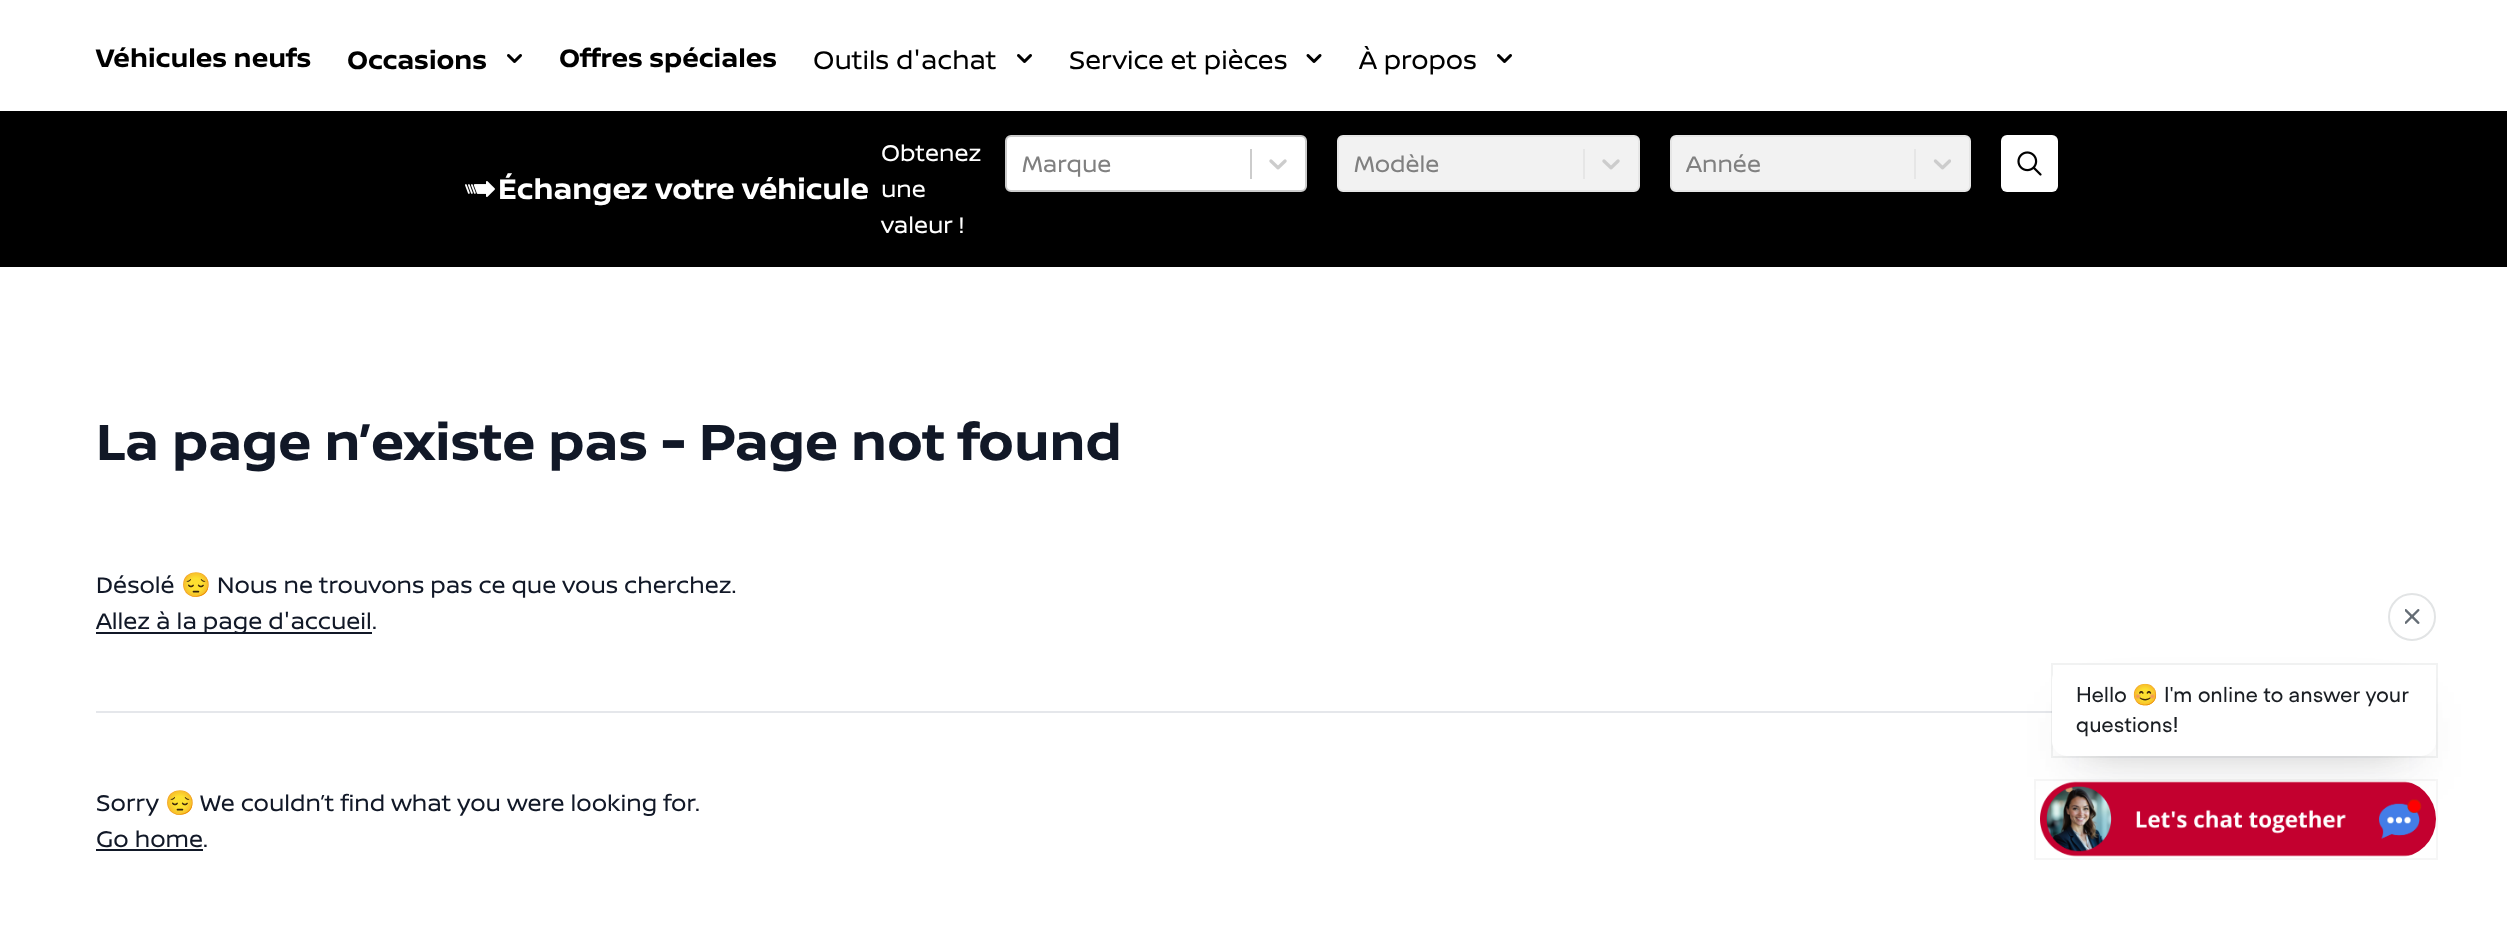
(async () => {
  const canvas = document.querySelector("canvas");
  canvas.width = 2507;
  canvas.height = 930;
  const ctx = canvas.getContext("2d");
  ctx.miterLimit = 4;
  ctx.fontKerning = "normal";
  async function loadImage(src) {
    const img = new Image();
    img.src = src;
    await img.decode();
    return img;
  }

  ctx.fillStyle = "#ffffff";
  ctx.fillRect(0, 0, 2507, 930);
  ctx.drawImage(await loadImage("img/1.png"), 507, 54, 15, 9);
  ctx.drawImage(await loadImage("img/1.png"), 1017, 54, 15, 9);
  ctx.drawImage(await loadImage("img/2.png"), 1306, 54, 16, 9);
  ctx.drawImage(await loadImage("img/1.png"), 1497, 54, 15, 9);
  ctx.fillStyle = "#000000";
  ctx.fillRect(0, 111, 2507, 156);
  ctx.drawImage(await loadImage("img/3.png"), 465, 181, 30, 16);
  ctx.fillStyle = "#ffffff";
  ctx.beginPath();
  ctx.roundRect(1006, 136, 300, 55, 5);
  ctx.fill();
  ctx.strokeStyle = "#cccccc";
  ctx.lineWidth = 2;
  ctx.stroke();
  ctx.fillStyle = "#cccccc";
  ctx.fillRect(1250, 149, 2, 30);
  ctx.drawImage(await loadImage("img/4.png"), 1269, 159, 18, 11);
  ctx.fillStyle = "#f2f2f2";
  ctx.beginPath();
  ctx.roundRect(1338, 136, 301, 55, 5);
  ctx.fill();
  ctx.strokeStyle = "#e6e6e6";
  ctx.stroke();
  ctx.fillStyle = "#e6e6e6";
  ctx.fillRect(1583, 149, 2, 30);
  ctx.drawImage(await loadImage("img/5.png"), 1602, 159, 18, 11);
  ctx.fillStyle = "#f2f2f2";
  ctx.beginPath();
  ctx.roundRect(1671, 136, 299, 55, 5);
  ctx.fill();
  ctx.stroke();
  ctx.fillStyle = "#e6e6e6";
  ctx.fillRect(1914, 149, 2, 30);
  ctx.drawImage(await loadImage("img/6.png"), 1933, 159, 18, 11);
  ctx.fillStyle = "#ffffff";
  ctx.beginPath();
  ctx.roundRect(2001, 135, 57, 57, 6);
  ctx.fill();
  ctx.drawImage(await loadImage("img/7.png"), 2017, 151, 25, 25);
  for (const [x, y, w, h, color] of [
    [96, 632, 276, 2, "#111827"],
    [96, 711, 1956, 2, "#e5e7eb"],
    [96, 849, 107, 2, "#111827"],
  ]) {
    ctx.fillStyle = color;
    ctx.fillRect(x, y, w, h);
  }
  ctx.beginPath();
  ctx.arc(2412, 617, 23, 0, Math.PI * 2);
  ctx.strokeStyle = "#e2e4e5";
  ctx.stroke();
  ctx.drawImage(await loadImage("img/8.png"), 2405, 609, 15, 15);
  ctx.fillStyle = "rgba(22, 26, 30, 0.12)";
  ctx.filter = "blur(33px)";
  ctx.beginPath();
  ctx.rect(2079, 722, 330, 37);
  ctx.fill();
  ctx.filter = "none";
  ctx.filter = "blur(21px)";
  ctx.beginPath();
  ctx.rect(2079, 716, 330, 37);
  ctx.fill();
  ctx.filter = "none";
  ctx.fillStyle = "rgba(22, 26, 30, 0.08)";
  ctx.filter = "blur(15px)";
  ctx.beginPath();
  ctx.rect(2079, 710, 330, 37);
  ctx.fill();
  ctx.filter = "none";
  ctx.strokeStyle = "rgba(22, 26, 30, 0.06)";
  ctx.strokeRect(2052, 664, 385, 93);
  ctx.fillStyle = "#ffffff";
  ctx.beginPath();
  ctx.roundRect(2052, 665, 384, 91, 15);
  ctx.fill();
  ctx.strokeStyle = "rgba(22, 26, 30, 0.04)";
  ctx.strokeRect(2035, 780, 402, 79);
  ctx.drawImage(await loadImage("img/9.png"), 2040, 781, 396, 76);
  ctx.font = "bold 27px 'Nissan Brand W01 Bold'";
  ctx.fillStyle = "#000000";
  for (const [text, x, y] of [
    ["Véhicules neufs", 96, 67],
    ["Occasions", 347, 69],
    ["Offres spéciales", 559, 67],
  ]) {
    ctx.fillText(text, x, y);
  }
  ctx.font = "27px 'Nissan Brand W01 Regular'";
  for (const [text, x, y] of [
    ["Outils d'achat", 813, 69],
    ["Service et pièces", 1069, 69],
    ["À propos", 1359, 69],
  ]) {
    ctx.fillText(text, x, y);
  }
  ctx.font = "bold 30px 'Nissan Brand W01 Bold'";
  ctx.fillStyle = "#ffffff";
  ctx.fillText("Échangez votre véhicule", 498, 199);
  ctx.font = "24px 'Nissan Brand W01 Regular'";
  for (const [text, x, y] of [
    ["Obtenez", 881, 161],
    ["une", 881, 197],
    ["valeur !", 881, 233],
  ]) {
    ctx.fillText(text, x, y);
  }
  ctx.fillStyle = "#808080";
  for (const [text, x, y] of [
    ["Marque", 1022, 172],
    ["Modèle", 1354, 172],
    ["Année", 1686, 172],
  ]) {
    ctx.fillText(text, x, y);
  }
  ctx.font = "bold 54px 'Nissan Brand W01 Bold'";
  ctx.fillStyle = "#111827";
  ctx.fillText("La page n’existe pas - Page not found", 96, 460);
  ctx.font = "24px 'Nissan Brand W01 Regular'";
  ctx.fillText("Désolé", 96, 593);
  ctx.font = "24px Noto Color Emoji";
  ctx.fillText("😔", 181, 593);
  ctx.font = "24px 'Nissan Brand W01 Regular'";
  for (const [text, x, y] of [
    ["Nous ne trouvons pas ce que vous cherchez.", 217, 593],
    ["Allez à la page d'accueil.", 96, 629],
    ["Sorry", 96, 811],
  ]) {
    ctx.fillText(text, x, y);
  }
  ctx.font = "24px Noto Color Emoji";
  ctx.fillText("😔", 165, 811);
  ctx.font = "24px 'Nissan Brand W01 Regular'";
  ctx.fillText("We couldn’t find what you were looking for.", 200, 811);
  ctx.fillText("Go home.", 96, 847);
  ctx.font = "21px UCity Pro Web";
  ctx.fillStyle = "#1a1e23";
  ctx.fillText("Hello", 2076, 702);
  ctx.font = "21px Noto Color Emoji";
  ctx.fillText("😊", 2132, 702);
  ctx.font = "21px UCity Pro Web";
  ctx.fillText("I'm online to answer your", 2164, 702);
  ctx.fillText("questions!", 2076, 732);
})();
